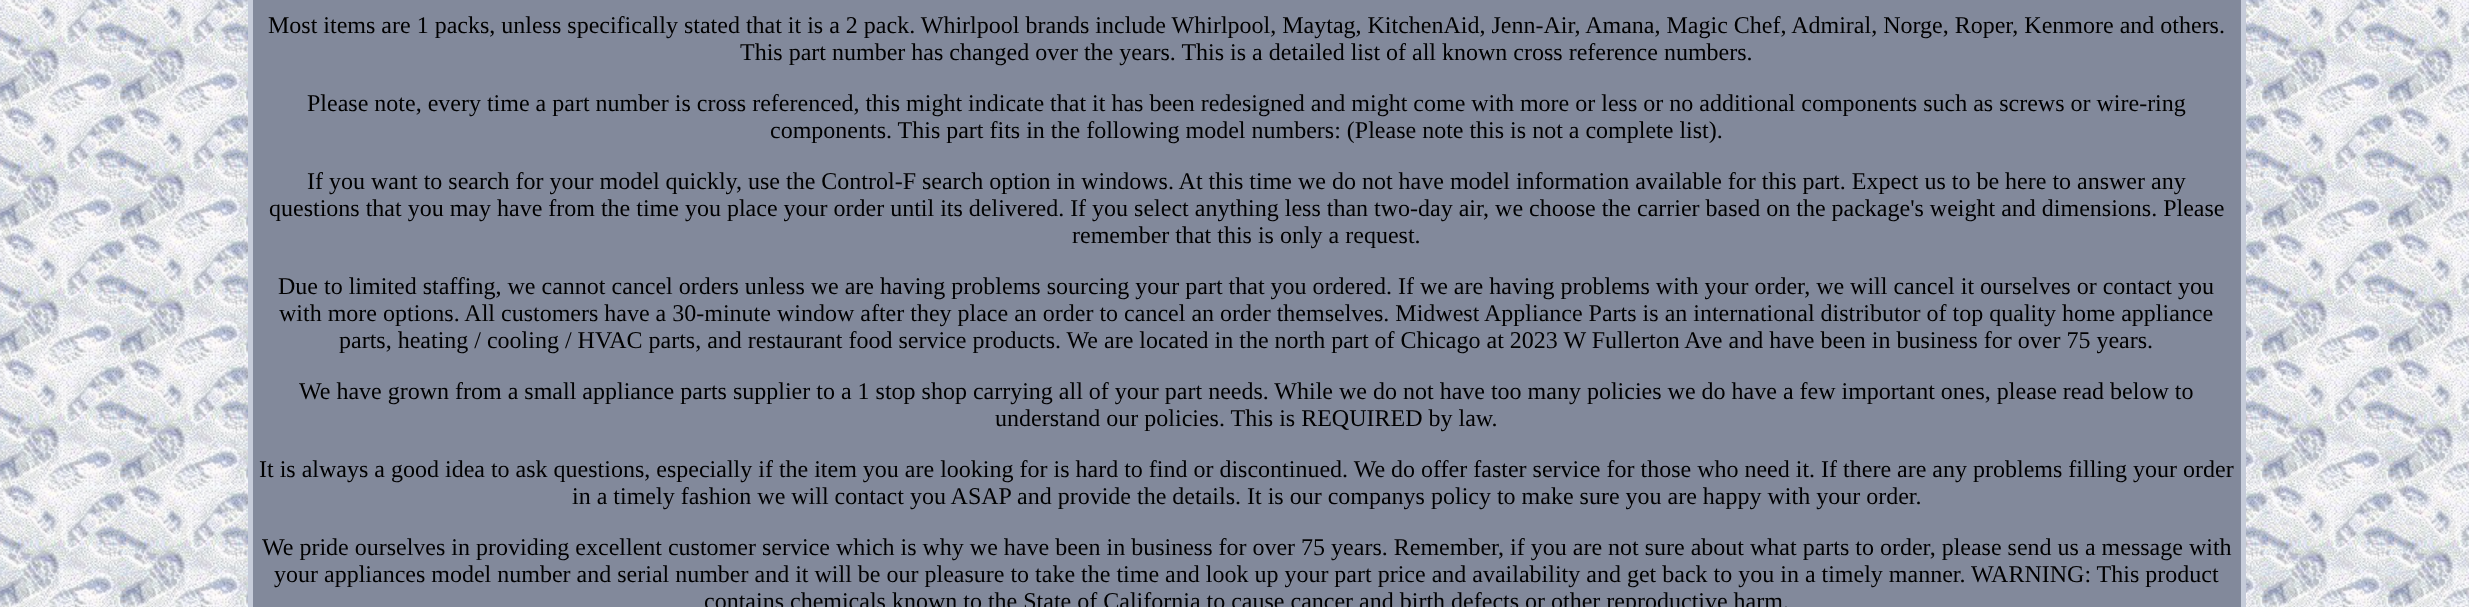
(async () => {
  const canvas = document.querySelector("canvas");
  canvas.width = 2469;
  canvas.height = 607;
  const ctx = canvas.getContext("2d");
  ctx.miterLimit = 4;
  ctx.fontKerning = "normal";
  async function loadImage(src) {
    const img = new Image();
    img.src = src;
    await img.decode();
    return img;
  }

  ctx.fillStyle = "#ffffff";
  ctx.fillRect(0, 0, 2469, 607);
  ctx.drawImage(await loadImage("img/1.png"), 0, 0, 2469, 607);
  ctx.fillStyle = "#82899b";
  ctx.beginPath();
  ctx.rect(250.5, -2.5, 1993, 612);
  ctx.fill();
  ctx.strokeStyle = "#c6ccda";
  ctx.lineWidth = 5;
  ctx.stroke();
  ctx.font = "24px Liberation Serif";
  ctx.fillStyle = "#000000";
  for (const [text, x, y] of [
    ["Most items are 1 packs, unless specifically stated that it is a 2 pack. Whirlpool brands include Whirlpool, Maytag, KitchenAid, Jenn-Air, Amana, Magic Chef, Admiral, Norge, Roper, Kenmore and others.", 268, 33],
    ["This part number has changed over the years. This is a detailed list of all known cross reference numbers.", 740, 60],
    ["Please note, every time a part number is cross referenced, this might indicate that it has been redesigned and might come with more or less or no additional components such as screws or wire-ring", 307, 111],
    ["components. This part fits in the following model numbers: (Please note this is not a complete list).", 770, 138],
    ["If you want to search for your model quickly, use the Control-F search option in windows. At this time we do not have model information available for this part. Expect us to be here to answer any", 307, 189],
    ["questions that you may have from the time you place your order until its delivered. If you select anything less than two-day air, we choose the carrier based on the package's weight and dimensions. Please", 269, 216],
    ["remember that this is only a request.", 1072, 243],
    ["Due to limited staffing, we cannot cancel orders unless we are having problems sourcing your part that you ordered. If we are having problems with your order, we will cancel it ourselves or contact you", 278, 294],
    ["with more options. All customers have a 30-minute window after they place an order to cancel an order themselves. Midwest Appliance Parts is an international distributor of top quality home appliance", 279, 321],
    ["parts, heating / cooling / HVAC parts, and restaurant food service products. We are located in the north part of Chicago at 2023 W Fullerton Ave and have been in business for over 75 years.", 339, 348],
    ["We have grown from a small appliance parts supplier to a 1 stop shop carrying all of your part needs. While we do not have too many policies we do have a few important ones, please read below to", 299, 399],
    ["understand our policies. This is REQUIRED by law.", 995, 426],
    ["It is always a good idea to ask questions, especially if the item you are looking for is hard to find or discontinued. We do offer faster service for those who need it. If there are any problems filling your order", 259, 477],
    ["in a timely fashion we will contact you ASAP and provide the details. It is our companys policy to make sure you are happy with your order.", 572, 504],
    ["We pride ourselves in providing excellent customer service which is why we have been in business for over 75 years. Remember, if you are not sure about what parts to order, please send us a message with", 262, 555],
    ["your appliances model number and serial number and it will be our pleasure to take the time and look up your part price and availability and get back to you in a timely manner. WARNING: This product", 274, 582],
    ["contains chemicals known to the State of California to cause cancer and birth defects or other reproductive harm.", 704, 609],
  ]) {
    ctx.fillText(text, x, y);
  }
})();
